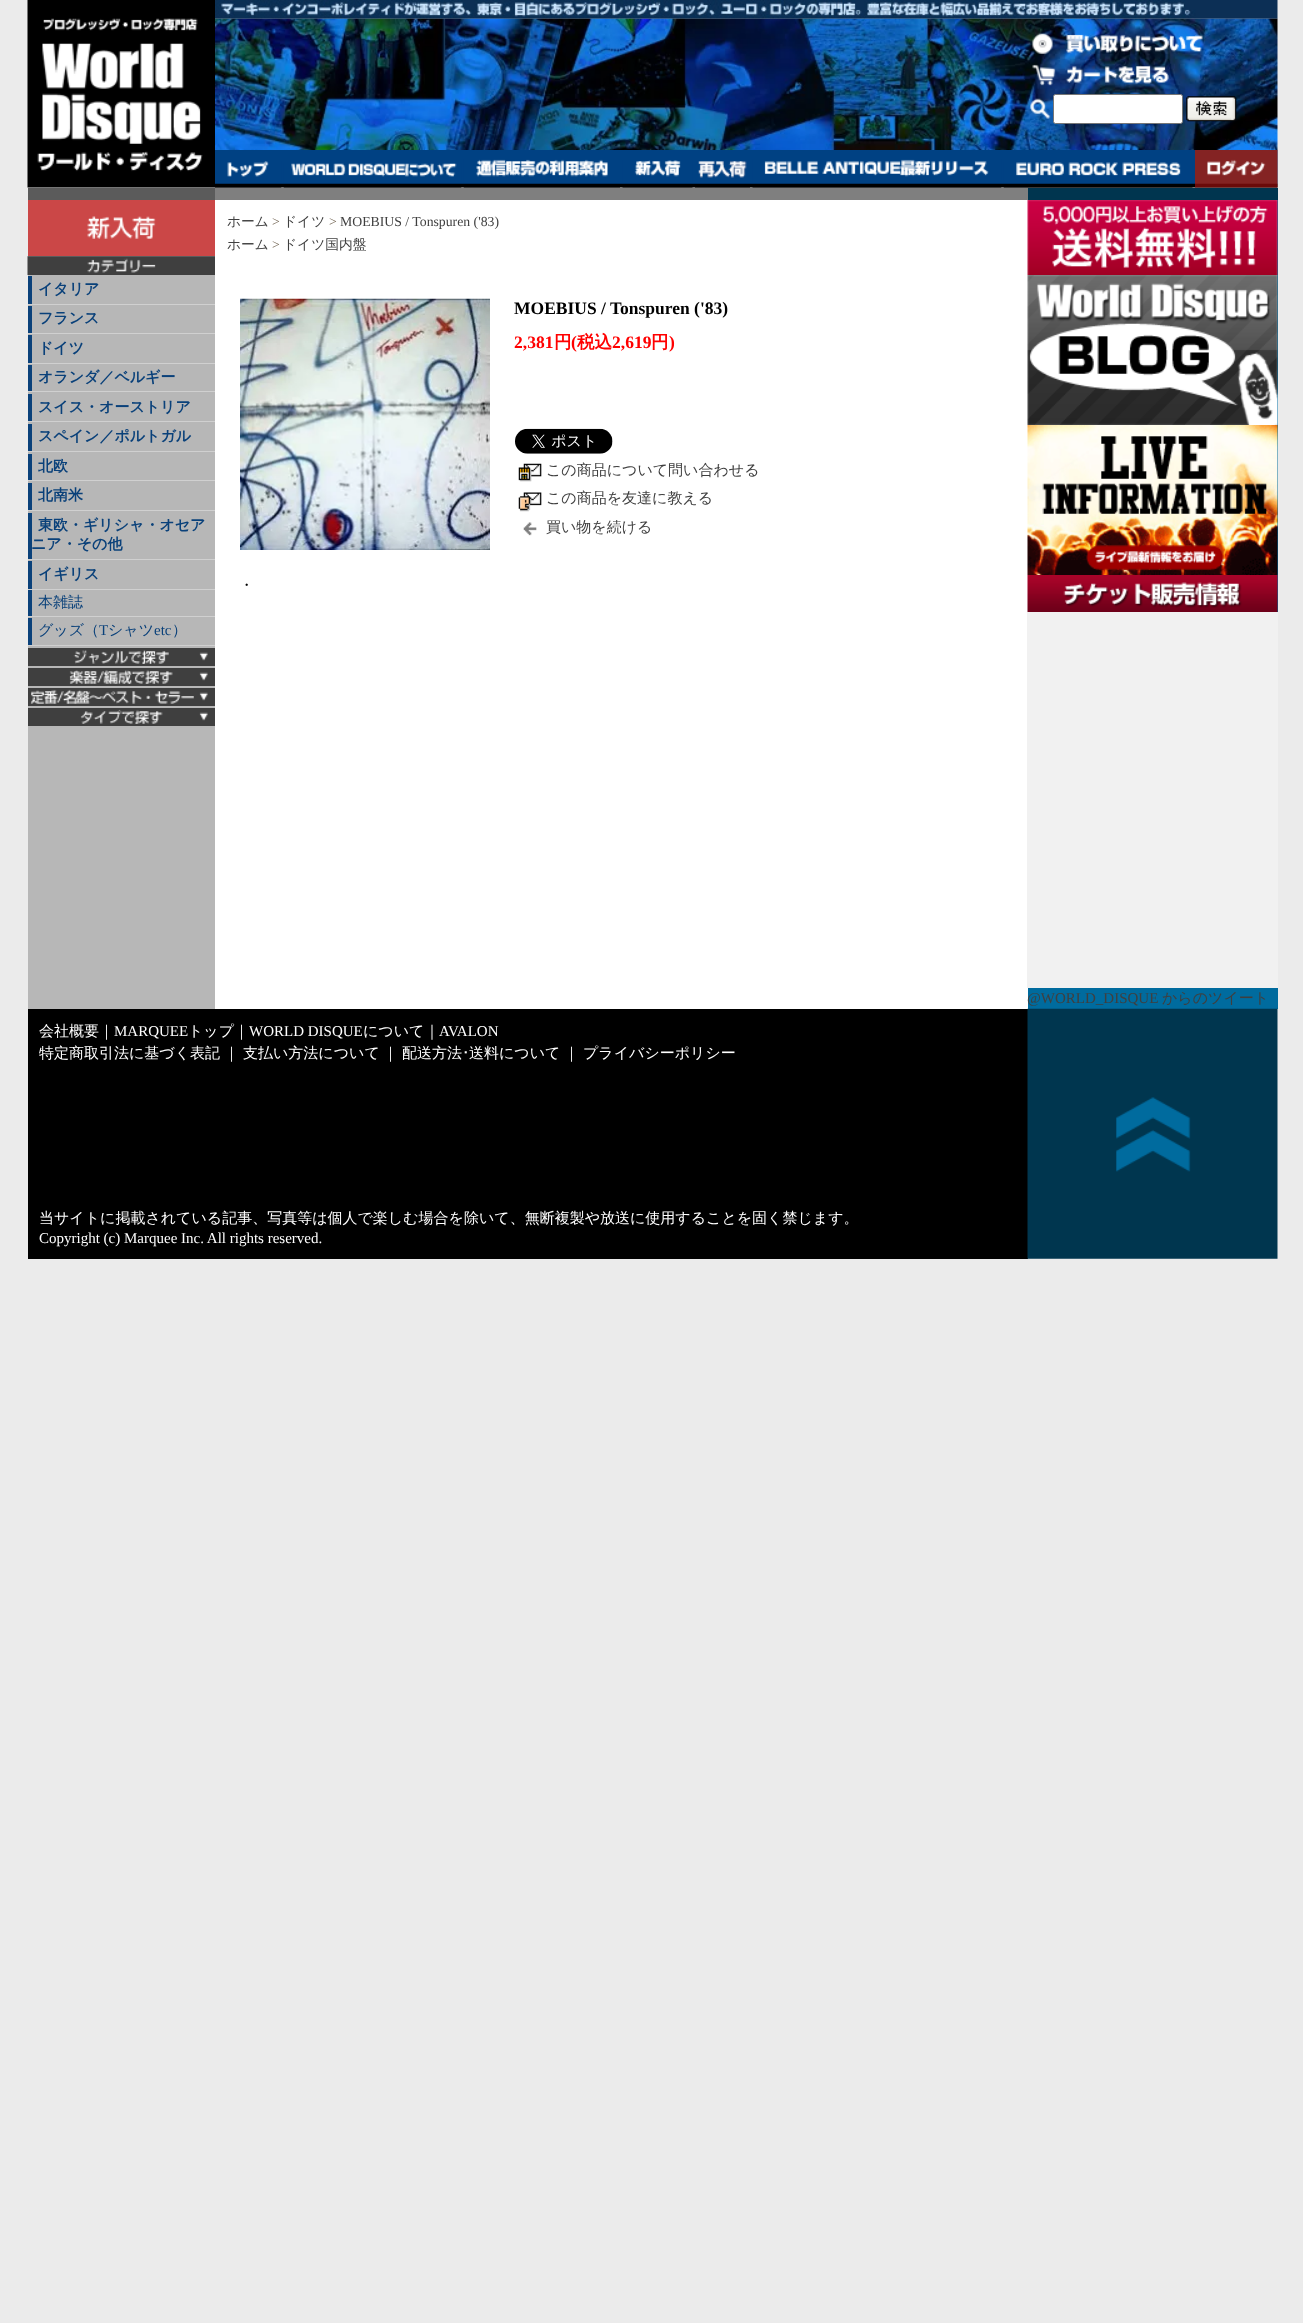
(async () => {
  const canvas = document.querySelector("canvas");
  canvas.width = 1303;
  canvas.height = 2323;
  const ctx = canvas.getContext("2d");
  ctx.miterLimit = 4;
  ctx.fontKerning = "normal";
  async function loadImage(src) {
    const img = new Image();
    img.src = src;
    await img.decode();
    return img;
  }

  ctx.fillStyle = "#ebebeb";
  ctx.fillRect(0, 0, 1303, 2323);
  ctx.drawImage(await loadImage("img/1.png"), 27, 0, 188, 188);
  ctx.drawImage(await loadImage("img/2.png"), 215, 0, 1063, 19);
  ctx.drawImage(await loadImage("img/3.png"), 215, 18, 1063, 132);
  ctx.drawImage(await loadImage("img/4.png"), 1032, 33, 171, 21);
  ctx.drawImage(await loadImage("img/5.png"), 1032, 64, 137, 22);
  ctx.drawImage(await loadImage("img/6.png"), 1029, 98, 22, 21);
  ctx.fillStyle = "#ffffff";
  ctx.beginPath();
  ctx.roundRect(1053.5, 94.5, 129, 29, 2);
  ctx.fill();
  ctx.strokeStyle = "#767676";
  ctx.stroke();
  ctx.drawImage(await loadImage("img/7.png"), 1186, 96, 51, 26);
  ctx.drawImage(await loadImage("img/8.png"), 215, 150, 1063, 38);
  ctx.drawImage(await loadImage("img/9.png"), 215, 161, 67, 27);
  ctx.drawImage(await loadImage("img/10.png"), 283, 163, 179, 25);
  ctx.drawImage(await loadImage("img/11.png"), 463, 159, 157, 29);
  ctx.drawImage(await loadImage("img/12.png"), 622, 160, 71, 28);
  ctx.drawImage(await loadImage("img/13.png"), 695, 161, 55, 27);
  ctx.drawImage(await loadImage("img/14.png"), 752, 159, 250, 29);
  ctx.drawImage(await loadImage("img/15.png"), 1003, 162, 190, 26);
  ctx.drawImage(await loadImage("img/16.png"), 1195, 150, 83, 38);
  for (const [x, y, w, h, color] of [
    [28, 256, 187, 753, "#b7b7b7"],
    [28, 188, 187, 12, "#5b5b5b"],
    [28, 200, 187, 56, "#cb4747"],
  ]) {
    ctx.fillStyle = color;
    ctx.fillRect(x, y, w, h);
  }
  ctx.drawImage(await loadImage("img/17.png"), 87, 216, 69, 23);
  ctx.drawImage(await loadImage("img/18.png"), 27, 256, 188, 19);
  for (const [x, y, w, h, color] of [
    [28, 304, 187, 1, "#d0d0d0"],
    [28, 276, 4, 28, "#0a417a"],
    [28, 333, 187, 1, "#d0d0d0"],
    [28, 306, 4, 27, "#0a417a"],
    [28, 363, 187, 1, "#d0d0d0"],
    [28, 335, 4, 28, "#0a417a"],
    [28, 391, 187, 1, "#d0d0d0"],
    [28, 365, 4, 26, "#0a417a"],
    [28, 421, 187, 1, "#d0d0d0"],
    [28, 394, 4, 27, "#0a417a"],
    [28, 451, 187, 1, "#d0d0d0"],
    [28, 424, 4, 27, "#0a417a"],
    [28, 480, 187, 1, "#d0d0d0"],
    [28, 454, 4, 26, "#0a417a"],
    [28, 510, 187, 1, "#d0d0d0"],
    [28, 483, 4, 27, "#0a417a"],
    [28, 559, 187, 1, "#d0d0d0"],
    [28, 513, 4, 46, "#0a417a"],
    [28, 589, 187, 1, "#d0d0d0"],
    [28, 561, 4, 28, "#0a417a"],
    [28, 616, 187, 1, "#d0d0d0"],
    [28, 590, 4, 26, "#0a417a"],
    [28, 645, 187, 1, "#d0d0d0"],
    [28, 618, 4, 27, "#0a417a"],
    [28, 648, 187, 18, "#3f3f3f"],
  ]) {
    ctx.fillStyle = color;
    ctx.fillRect(x, y, w, h);
  }
  ctx.drawImage(await loadImage("img/19.png"), 73, 650, 135, 14);
  ctx.fillRect(28, 668, 187, 18);
  ctx.drawImage(await loadImage("img/20.png"), 69, 670, 139, 14);
  ctx.fillRect(28, 688, 187, 18);
  ctx.drawImage(await loadImage("img/21.png"), 30, 689, 178, 15);
  ctx.fillRect(28, 708, 187, 18);
  ctx.drawImage(await loadImage("img/22.png"), 80, 709, 128, 15);
  ctx.fillStyle = "#ffffff";
  ctx.fillRect(215, 200, 813, 809);
  ctx.fillStyle = "#7f7f7f";
  ctx.fillRect(215, 188, 813, 12);
  ctx.drawImage(await loadImage("img/23.png"), 240, 298, 250, 252);
  ctx.drawImage(await loadImage("img/24.png"), 515, 428, 98, 26);
  ctx.drawImage(await loadImage("img/25.png"), 518, 463, 24, 19);
  ctx.drawImage(await loadImage("img/26.png"), 518, 492, 24, 20);
  ctx.drawImage(await loadImage("img/27.png"), 523, 522, 14, 14);
  ctx.fillStyle = "#006b9e";
  ctx.fillRect(1028, 200, 250, 809);
  ctx.fillStyle = "#00354f";
  ctx.fillRect(1028, 188, 250, 12);
  ctx.drawImage(await loadImage("img/28.png"), 1027, 200, 251, 75);
  ctx.drawImage(await loadImage("img/29.png"), 1027, 275, 251, 150);
  ctx.drawImage(await loadImage("img/30.png"), 1027, 425, 251, 150);
  ctx.drawImage(await loadImage("img/31.png"), 1027, 575, 251, 37);
  ctx.fillStyle = "#f1f1f1";
  ctx.fillRect(1027, 612, 251, 376);
  ctx.fillStyle = "#000000";
  ctx.fillRect(28, 1009, 1000, 250);
  ctx.drawImage(await loadImage("img/32.png"), 1027, 1008, 251, 251);
  ctx.font = "bold 15px WenQuanYi Zen Hei";
  ctx.fillStyle = "#0a417a";
  for (const [text, x, y] of [
    ["イタリア", 38, 294],
    ["フランス", 38, 323],
    ["ドイツ", 38, 353],
    ["オランダ／ベルギー", 38, 382],
    ["スイス・オーストリア", 38, 412],
    ["スペイン／ポルトガル", 38, 441],
    ["北欧", 38, 471],
    ["北南米", 38, 500],
    ["東欧・ギリシャ・オセア", 38, 530],
    ["ニア・その他", 31, 549],
    ["イギリス", 38, 579],
  ]) {
    ctx.fillText(text, x, y);
  }
  ctx.font = "500 15px WenQuanYi Zen Hei";
  ctx.fillText("本雑誌", 38, 607);
  ctx.fillText("グッズ（", 38, 635);
  ctx.font = "15px Liberation Serif";
  ctx.fillText("T", 99, 635);
  ctx.font = "500 15px WenQuanYi Zen Hei";
  ctx.fillText("シャツ", 108, 635);
  ctx.font = "15px Liberation Serif";
  ctx.fillText("etc", 154, 635);
  ctx.font = "500 15px WenQuanYi Zen Hei";
  ctx.fillText("）", 172, 635);
  ctx.font = "500 13.75px WenQuanYi Zen Hei";
  ctx.fillStyle = "#3f3f3f";
  ctx.fillText("ホーム", 227, 226);
  ctx.font = "13.75px Liberation Serif";
  ctx.fillStyle = "#695b48";
  ctx.fillText(">", 272, 226);
  ctx.font = "500 13.75px WenQuanYi Zen Hei";
  ctx.fillStyle = "#3f3f3f";
  ctx.fillText("ドイツ", 283, 226);
  ctx.font = "13.75px Liberation Serif";
  ctx.fillStyle = "#695b48";
  ctx.fillText(">", 329, 226);
  ctx.fillStyle = "#3f3f3f";
  ctx.fillText("MOEBIUS / Tonspuren ('83)", 340, 226);
  ctx.font = "500 13.75px WenQuanYi Zen Hei";
  ctx.fillText("ホーム", 227, 249);
  ctx.font = "13.75px Liberation Serif";
  ctx.fillStyle = "#695b48";
  ctx.fillText(">", 272, 249);
  ctx.font = "500 13.75px WenQuanYi Zen Hei";
  ctx.fillStyle = "#3f3f3f";
  ctx.fillText("ドイツ国内盤", 283, 249);
  ctx.font = "bold 17.5px Liberation Serif";
  ctx.fillStyle = "#000000";
  ctx.fillText("MOEBIUS / Tonspuren ('83)", 514, 314);
  ctx.fillStyle = "#ff0000";
  ctx.fillText("2,381", 514, 348);
  ctx.font = "bold 17.5px WenQuanYi Zen Hei";
  ctx.fillText("円", 554, 348);
  ctx.font = "bold 17.5px Liberation Serif";
  ctx.fillText("(", 571, 348);
  ctx.font = "bold 17.5px WenQuanYi Zen Hei";
  ctx.fillText("税込", 577, 348);
  ctx.font = "bold 17.5px Liberation Serif";
  ctx.fillText("2,619", 612, 348);
  ctx.font = "bold 17.5px WenQuanYi Zen Hei";
  ctx.fillText("円", 651, 348);
  ctx.font = "bold 17.5px Liberation Serif";
  ctx.fillText(")", 669, 348);
  ctx.font = "500 15px WenQuanYi Zen Hei";
  ctx.fillStyle = "#3f3f3f";
  for (const [text, x, y] of [
    ["この商品について問い合わせる", 546, 475],
    ["この商品を友達に教える", 546, 503],
    ["買い物を続ける", 546, 532],
  ]) {
    ctx.fillText(text, x, y);
  }
  ctx.fillStyle = "#000000";
  ctx.fillText("・", 239, 590);
  ctx.font = "15px Liberation Serif";
  ctx.fillStyle = "#3f3f3f";
  ctx.fillText("@WORLD_DISQUE", 1027, 1003);
  ctx.font = "500 15px WenQuanYi Zen Hei";
  ctx.fillText("からのツイート", 1162, 1003);
  ctx.fillStyle = "#ffffff";
  ctx.fillText("会社概要｜", 39, 1036);
  ctx.font = "15px Liberation Serif";
  ctx.fillText("MARQUEE", 114, 1036);
  ctx.font = "500 15px WenQuanYi Zen Hei";
  ctx.fillText("トップ｜", 188, 1036);
  ctx.font = "15px Liberation Serif";
  ctx.fillText("WORLD DISQUE", 249, 1036);
  ctx.font = "500 15px WenQuanYi Zen Hei";
  ctx.fillText("について｜", 363, 1036);
  ctx.font = "15px Liberation Serif";
  ctx.fillText("AVALON", 439, 1036);
  ctx.font = "500 15px WenQuanYi Zen Hei";
  for (const [text, x, y] of [
    ["特定商取引法に基づく表記", 39, 1058],
    ["｜", 224, 1058],
    ["支払い方法について", 243, 1058],
    ["｜", 383, 1058],
    ["配送方法", 402, 1058],
  ]) {
    ctx.fillText(text, x, y);
  }
  ctx.font = "15px IPAPGothic";
  ctx.fillText("･", 462, 1058);
  ctx.font = "500 15px WenQuanYi Zen Hei";
  for (const [text, x, y] of [
    ["送料について", 469, 1058],
    ["｜", 564, 1058],
    ["プライバシーポリシー", 583, 1058],
    ["当サイトに掲載されている記事、写真等は個人で楽しむ場合を除いて、無断複製や放送に使用することを固く禁じます。", 39, 1223],
  ]) {
    ctx.fillText(text, x, y);
  }
  ctx.font = "15px Liberation Serif";
  ctx.fillText("Copyright (c) Marquee Inc. All rights reserved.", 39, 1243);
})();
